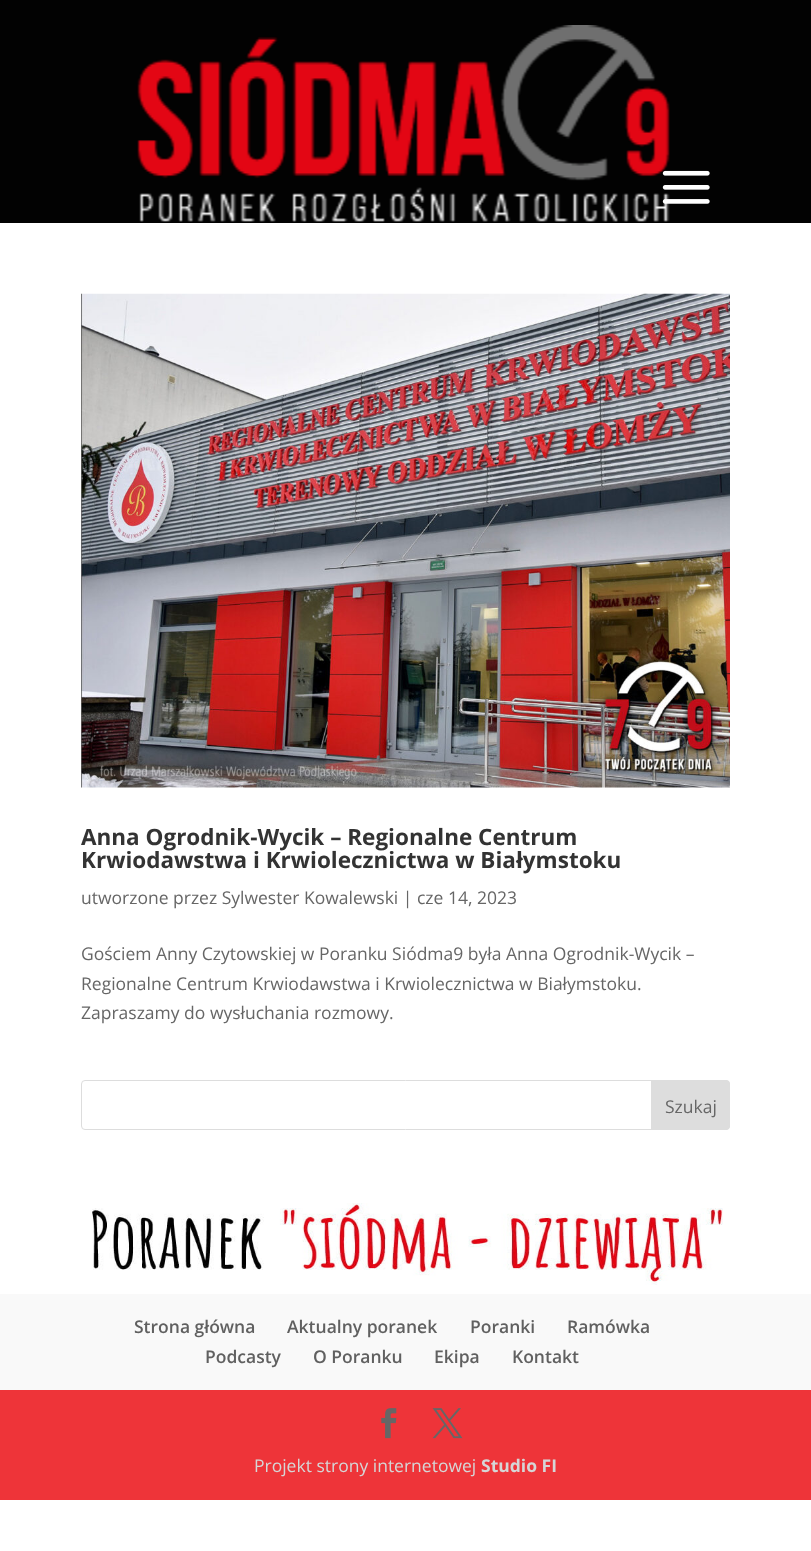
(async () => {
  const canvas = document.querySelector("canvas");
  canvas.width = 811;
  canvas.height = 1551;
  const ctx = canvas.getContext("2d");
  ctx.miterLimit = 4;
  ctx.fontKerning = "normal";
  async function loadImage(src) {
    const img = new Image();
    img.src = src;
    await img.decode();
    return img;
  }

  ctx.fillStyle = "#ffffff";
  ctx.fillRect(0, 0, 811, 1551);
  ctx.fillStyle = "#020202";
  ctx.fillRect(0, 0, 811, 223);
  ctx.drawImage(await loadImage("img/1.png"), 137, 25, 533, 197);
  ctx.drawImage(await loadImage("img/2.png"), 662, 170, 48, 34);
  ctx.drawImage(await loadImage("img/3.png"), 81, 293, 649, 495);
  ctx.beginPath();
  ctx.roundRect(81.5, 1080.5, 648, 49, 3.5);
  ctx.strokeStyle = "#dddddd";
  ctx.stroke();
  ctx.fillStyle = "#dddddd";
  ctx.beginPath();
  ctx.roundRect(651.5, 1080.5, 78, 49, [0, 3.5, 3.5, 0]);
  ctx.fill();
  ctx.stroke();
  ctx.drawImage(await loadImage("img/4.png"), 92, 1203, 631, 82);
  ctx.fillStyle = "#f9f9f9";
  ctx.fillRect(0, 1294, 811, 96);
  ctx.fillStyle = "#ee3439";
  ctx.fillRect(0, 1390, 811, 110);
  ctx.drawImage(await loadImage("img/5.png"), 381, 1408, 16, 31);
  ctx.drawImage(await loadImage("img/6.png"), 432, 1408, 31, 31);
  ctx.font = "bold 22.5px Open Sans";
  ctx.fillStyle = "#333333";
  ctx.fillText("Anna Ogrodnik-Wycik – Regionalne Centrum", 81, 845);
  ctx.fillText("Krwiodawstwa i Krwiolecznictwa w Białymstoku", 81, 868);
  ctx.font = "17.5px Open Sans";
  ctx.fillStyle = "#666666";
  for (const [text, x, y] of [
    ["utworzone przez Sylwester Kowalewski | cze 14, 2023", 81, 904],
    ["Gościem Anny Czytowskiej w Poranku Siódma9 była Anna Ogrodnik-Wycik –", 81, 960],
    ["Regionalne Centrum Krwiodawstwa i Krwiolecznictwa w Białymstoku.", 81, 990],
    ["Zapraszamy do wysłuchania rozmowy.", 81, 1019],
    ["Szukaj", 665, 1113],
  ]) {
    ctx.fillText(text, x, y);
  }
  ctx.font = "600 17.5px Open Sans";
  ctx.fillStyle = "#606060";
  for (const [text, x, y] of [
    ["Strona główna", 134, 1333],
    ["Aktualny poranek", 287, 1333],
    ["Poranki", 470, 1333],
    ["Ramówka", 567, 1333],
    ["Podcasty", 205, 1363],
    ["O Poranku", 313, 1363],
    ["Ekipa", 434, 1363],
    ["Kontakt", 512, 1363],
  ]) {
    ctx.fillText(text, x, y);
  }
  ctx.font = "17.5px Open Sans";
  ctx.fillStyle = "#d6d6d6";
  ctx.fillText("Projekt strony internetowej", 254, 1472);
  ctx.font = "bold 17.5px Open Sans";
  ctx.fillText("Studio FI", 481, 1472);
})();
